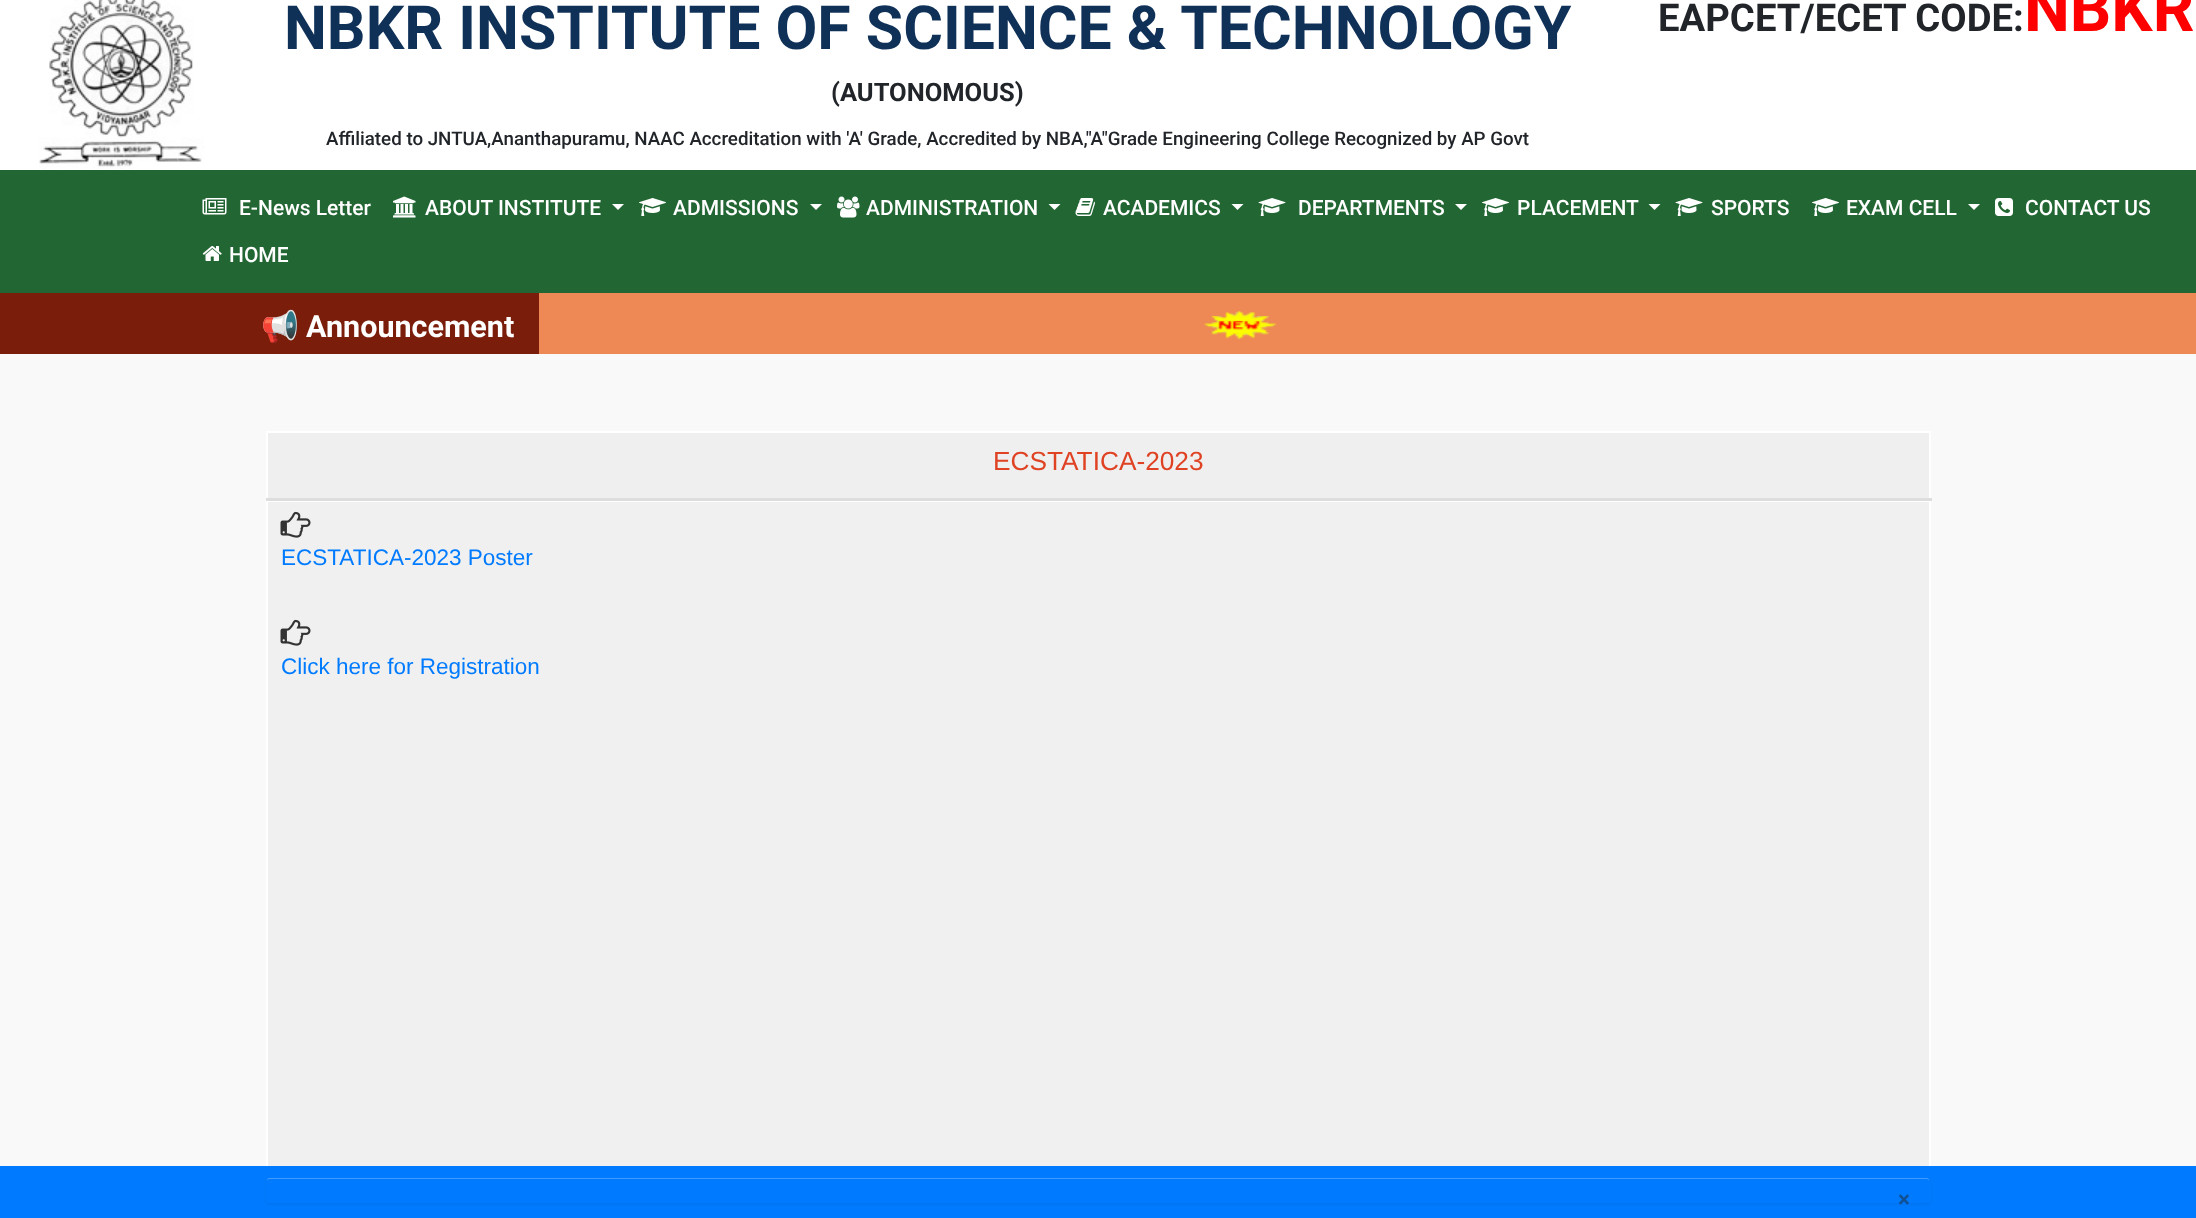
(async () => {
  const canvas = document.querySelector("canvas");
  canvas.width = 2196;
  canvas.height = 1218;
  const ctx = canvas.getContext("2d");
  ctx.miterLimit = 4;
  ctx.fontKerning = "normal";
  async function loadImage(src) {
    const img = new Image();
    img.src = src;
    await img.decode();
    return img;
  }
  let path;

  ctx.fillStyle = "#f9f9f9";
  ctx.fillRect(0, 0, 2196, 1218);
  ctx.fillStyle = "#ffffff";
  ctx.fillRect(0, 0, 2196, 170);
  ctx.drawImage(await loadImage("img/1.png"), 39, 0, 165, 169);
  ctx.fillStyle = "#226633";
  ctx.fillRect(0, 170, 2196, 123);
  ctx.drawImage(await loadImage("img/2.png"), 202, 198, 25, 17);
  ctx.drawImage(await loadImage("img/3.png"), 202, 246, 20, 15);
  ctx.drawImage(await loadImage("img/4.png"), 393, 196, 23, 22);
  ctx.fillStyle = "#ffffff";
  path = new Path2D("M612 204H624L618 210Z");
  ctx.fill(path);
  ctx.drawImage(await loadImage("img/5.png"), 639, 198, 27, 18);
  path = new Path2D("M810 204H822L816 210Z");
  ctx.fill(path);
  ctx.drawImage(await loadImage("img/6.png"), 837, 196, 23, 22);
  path = new Path2D("M1048.5 204H1060.5L1054.5 210Z");
  ctx.fill(path);
  ctx.drawImage(await loadImage("img/7.png"), 1075, 198, 20, 18);
  path = new Path2D("M1231.5 204H1243.5L1237.5 210Z");
  ctx.fill(path);
  ctx.drawImage(await loadImage("img/8.png"), 1258, 198, 28, 18);
  path = new Path2D("M1455 204H1467L1461 210Z");
  ctx.fill(path);
  ctx.drawImage(await loadImage("img/5.png"), 1482, 198, 27, 18);
  path = new Path2D("M1648.5 204H1660.5L1654.5 210Z");
  ctx.fill(path);
  ctx.drawImage(await loadImage("img/8.png"), 1675, 198, 28, 18);
  ctx.drawImage(await loadImage("img/5.png"), 1812, 198, 27, 18);
  path = new Path2D("M1968 204H1980L1974 210Z");
  ctx.fill(path);
  ctx.drawImage(await loadImage("img/9.png"), 1995, 198, 18, 18);
  ctx.fillStyle = "#7a1e0b";
  ctx.fillRect(0, 293, 539, 61);
  ctx.fillStyle = "#ee8855";
  ctx.fillRect(539, 293, 1657, 61);
  ctx.drawImage(await loadImage("img/10.png"), 1204, 310, 73, 30);
  for (const [x, y, w, h, color] of [
    [268, 433, 1661, 65, "#efefef"],
    [266, 431, 1665, 2, "#ffffff"],
    [266, 501, 1665, 1, "#ffffff"],
    [1929, 500, 2, 666, "#ffffff"],
    [1929, 431, 2, 70, "#ffffff"],
    [266, 500, 2, 666, "#ffffff"],
    [266, 431, 2, 70, "#ffffff"],
    [266, 498, 1666, 3, "#dddddd"],
    [268, 502, 1661, 664, "#f0f0f0"],
  ]) {
    ctx.fillStyle = color;
    ctx.fillRect(x, y, w, h);
  }
  ctx.drawImage(await loadImage("img/11.png"), 280, 511, 31, 27);
  ctx.drawImage(await loadImage("img/11.png"), 280, 619, 31, 27);
  ctx.fillStyle = "#007bff";
  ctx.fillRect(0, 1166, 2196, 52);
  ctx.save();
  path = new Path2D("M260 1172H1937V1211H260ZM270 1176H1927C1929 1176 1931 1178 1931 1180V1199C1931 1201 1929 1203 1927 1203H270C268 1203 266 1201 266 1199V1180C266 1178 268 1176 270 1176Z");
  ctx.clip(path, "evenodd");
  ctx.fillStyle = "rgba(0, 0, 0, 0.05)";
  ctx.filter = "blur(1.5px)";
  ctx.beginPath();
  ctx.roundRect(266, 1178, 1665, 27, 4);
  ctx.fill();
  ctx.filter = "none";
  ctx.restore();
  ctx.fillStyle = "#409cff";
  path = new Path2D("M269 1179H1927C1928 1179 1929 1180 1929 1181V1180C1929 1179 1928 1178 1927 1178H269C268 1178 267 1179 267 1180V1181C267 1180 268 1179 269 1179Z");
  ctx.fill(path);
  ctx.font = "bold 60.75px Roboto";
  ctx.fillStyle = "#0f3057";
  ctx.fillText("NBKR INSTITUTE OF SCIENCE & TECHNOLOGY", 284, 49);
  ctx.font = "bold 25.5px Roboto";
  ctx.fillStyle = "#212529";
  ctx.fillText("(AUTONOMOUS)", 831, 101);
  ctx.font = "500 18.75px Roboto";
  ctx.fillText("Affiliated to JNTUA,Ananthapuramu, NAAC Accreditation with 'A' Grade, Accredited by NBA,\"A\"Grade Engineering College Recognized by AP Govt", 326, 145);
  ctx.font = "bold 38.25px Roboto";
  ctx.fillText("EAPCET/ECET CODE:", 1658, 31);
  ctx.font = "bold 65px Roboto";
  ctx.fillStyle = "#ff0000";
  ctx.fillText("NBKR", 2024, 31);
  ctx.font = "500 21px Roboto";
  ctx.fillStyle = "#ffffff";
  for (const [text, x, y] of [
    ["E-News Letter", 239, 215],
    ["HOME", 229, 262],
    ["ABOUT INSTITUTE", 425, 215],
    ["ADMISSIONS", 673, 215],
    ["ADMINISTRATION", 866, 215],
    ["ACADEMICS", 1103, 215],
    ["DEPARTMENTS", 1298, 215],
    ["PLACEMENT", 1517, 215],
    ["SPORTS", 1711, 215],
    ["EXAM CELL", 1846, 215],
    ["CONTACT US", 2025, 215],
  ]) {
    ctx.fillText(text, x, y);
  }
  ctx.font = "bold 30.5px Noto Color Emoji";
  ctx.fillText("📢", 261, 337);
  ctx.font = "bold 30.5px Roboto";
  ctx.fillText("Announcement", 306, 337);
  ctx.font = "26.25px Liberation Sans";
  ctx.fillStyle = "#df4323";
  ctx.fillText("ECSTATICA-2023", 993, 470);
  ctx.font = "22.5px Liberation Sans";
  ctx.fillStyle = "#007bff";
  ctx.fillText("ECSTATICA-2023 Poster", 281, 565);
  ctx.fillText("Click here for Registration", 281, 674);
  ctx.font = "bold 22.5px Roboto";
  ctx.fillStyle = "#115093";
  ctx.fillText("×", 1898, 1207);
})();
